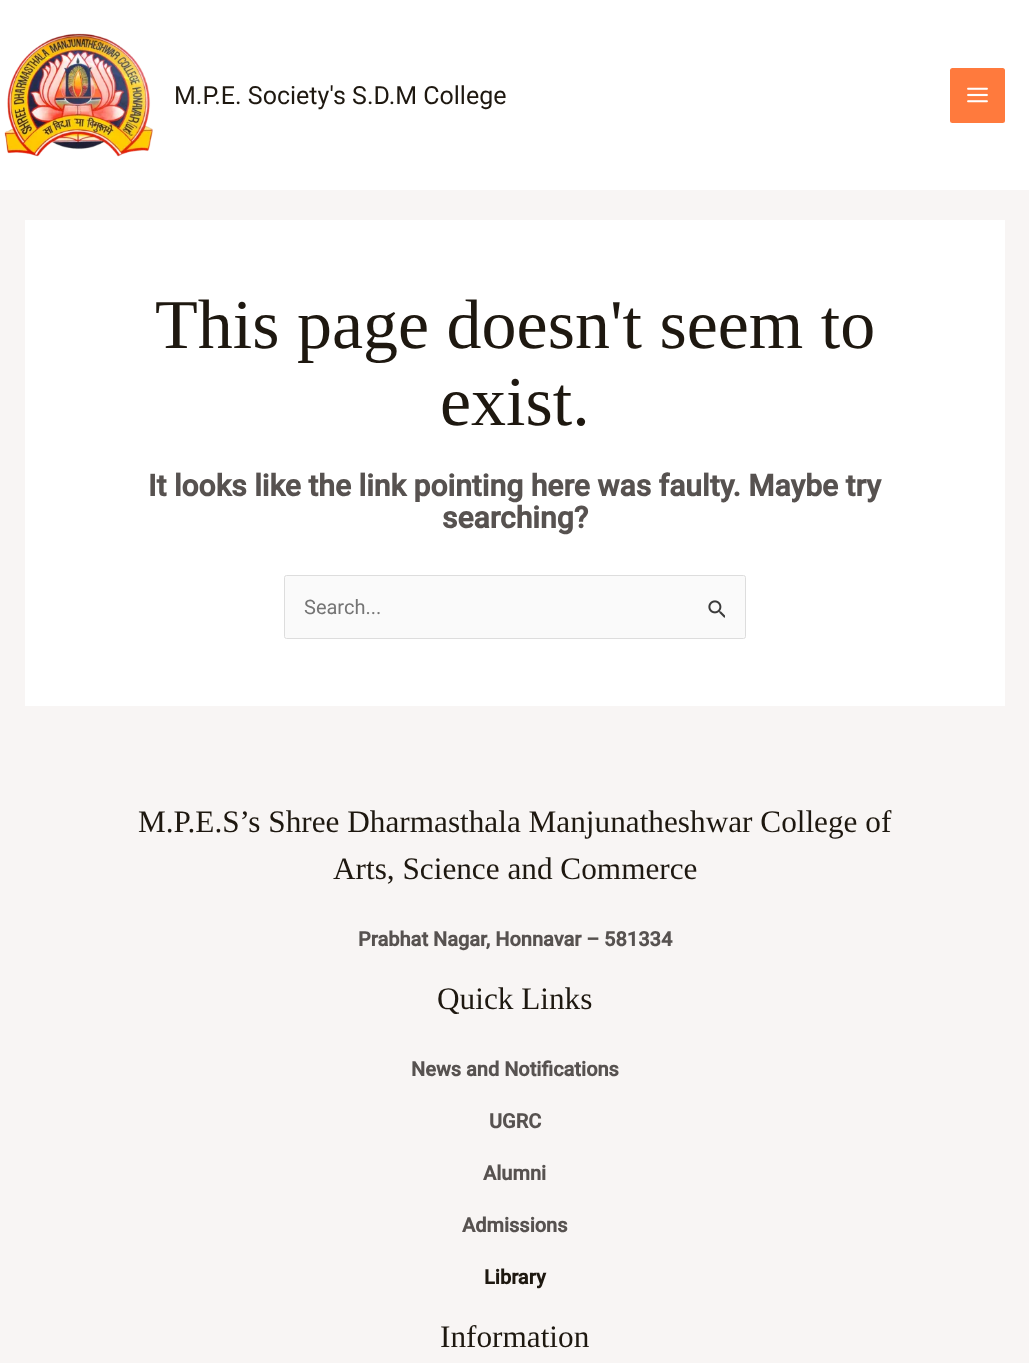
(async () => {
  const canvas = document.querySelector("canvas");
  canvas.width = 1029;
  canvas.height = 1363;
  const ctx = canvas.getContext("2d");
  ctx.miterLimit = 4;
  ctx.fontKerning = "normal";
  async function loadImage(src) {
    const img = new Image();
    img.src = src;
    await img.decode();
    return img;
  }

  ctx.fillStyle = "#f8f5f4";
  ctx.fillRect(0, 0, 1029, 1363);
  ctx.fillStyle = "#ffffff";
  ctx.fillRect(0, 0, 1029, 190);
  ctx.drawImage(await loadImage("img/1.png"), 4, 33, 149, 124);
  ctx.fillStyle = "#ff7a3d";
  ctx.beginPath();
  ctx.roundRect(950, 68, 55, 55, 2.5);
  ctx.fill();
  ctx.drawImage(await loadImage("img/2.png"), 967, 87, 21, 16);
  ctx.fillStyle = "#ffffff";
  ctx.fillRect(25, 220, 980, 486);
  ctx.fillStyle = "#fafafa";
  ctx.beginPath();
  ctx.roundRect(284.5, 575.5, 461, 63, 2);
  ctx.fill();
  ctx.strokeStyle = "#dddddd";
  ctx.stroke();
  ctx.drawImage(await loadImage("img/3.png"), 708, 600, 17, 18);
  ctx.font = "25px Roboto";
  ctx.fillStyle = "#1e1810";
  ctx.fillText("M.P.E. Society's S.D.M College", 174, 104);
  ctx.font = "70px Liberation Serif";
  ctx.fillText("This page doesn't seem to", 155, 348);
  ctx.fillText("exist.", 440, 425);
  ctx.font = "bold 30px Roboto";
  ctx.fillStyle = "#575250";
  ctx.fillText("It looks like the link pointing here was faulty. Maybe try", 148, 496);
  ctx.fillText("searching?", 442, 528);
  ctx.font = "20px Roboto";
  ctx.fillStyle = "#757575";
  ctx.fillText("Search...", 304, 614);
  ctx.font = "31.25px Liberation Serif";
  ctx.fillStyle = "#1e1810";
  ctx.fillText("M.P.E.S’s Shree Dharmasthala Manjunatheshwar College of", 138, 832);
  ctx.fillText("Arts, Science and Commerce", 333, 879);
  ctx.font = "bold 20px Roboto";
  ctx.fillStyle = "#575250";
  ctx.fillText("Prabhat Nagar, Honnavar – 581334", 358, 946);
  ctx.font = "31.25px Liberation Serif";
  ctx.fillStyle = "#1e1810";
  ctx.fillText("Quick Links", 437, 1009);
  ctx.font = "bold 20px Roboto";
  ctx.fillStyle = "#575250";
  for (const [text, x, y] of [
    ["News and Notifications", 411, 1076],
    ["UGRC", 489, 1128],
    ["Alumni", 483, 1180],
    ["Admissions", 462, 1232],
  ]) {
    ctx.fillText(text, x, y);
  }
  ctx.fillStyle = "#1e1810";
  ctx.fillText("Library", 484, 1284);
  ctx.font = "31.25px Liberation Serif";
  ctx.fillText("Information", 440, 1347);
})();
